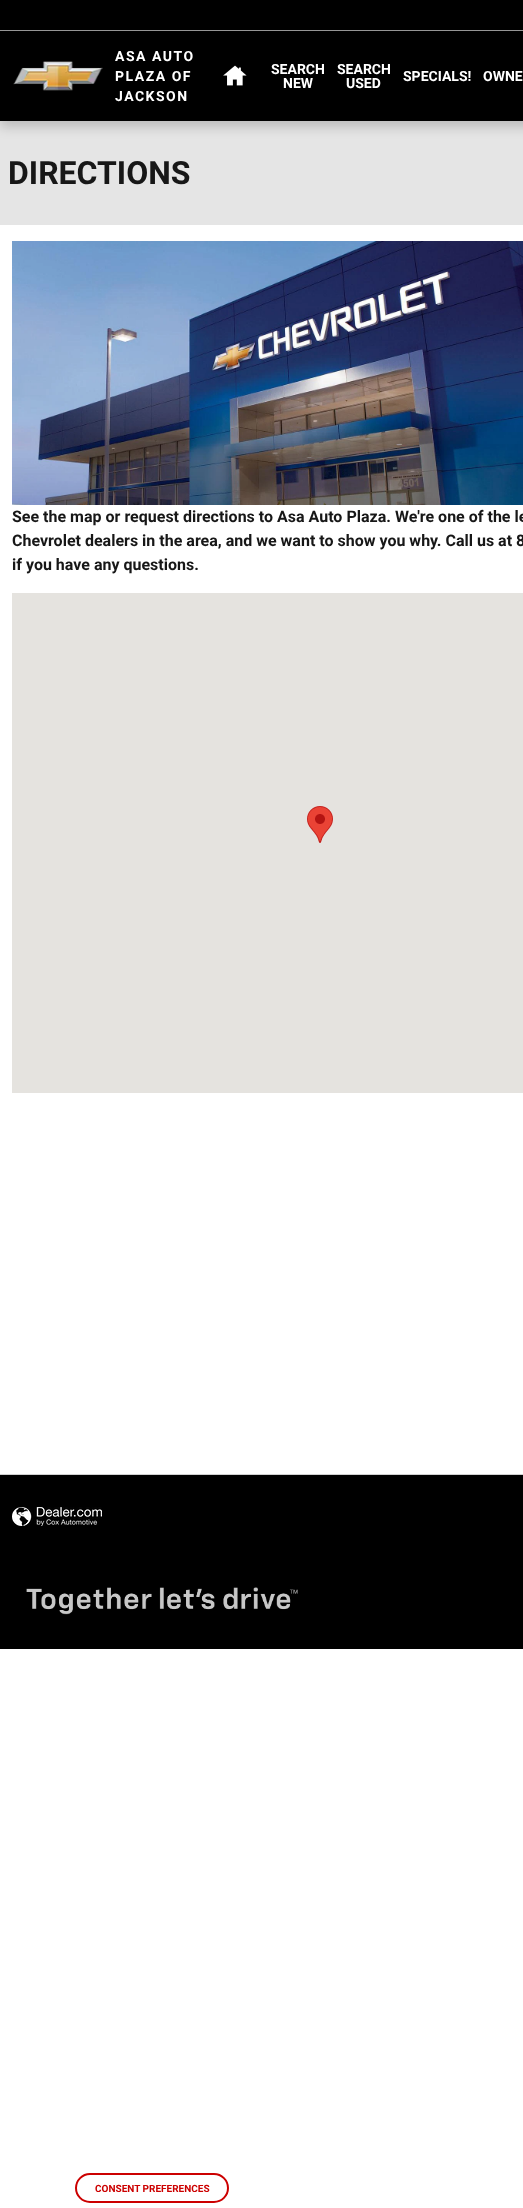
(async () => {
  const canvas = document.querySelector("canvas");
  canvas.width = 523;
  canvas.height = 2208;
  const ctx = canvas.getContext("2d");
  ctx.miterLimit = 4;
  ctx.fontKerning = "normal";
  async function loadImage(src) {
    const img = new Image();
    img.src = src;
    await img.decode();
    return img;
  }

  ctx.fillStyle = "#ffffff";
  ctx.fillRect(0, 0, 523, 2208);
  ctx.fillStyle = "#e5e5e5";
  ctx.fillRect(0, 121, 523, 104);
  ctx.fillStyle = "rgba(0, 0, 0, 0.18)";
  ctx.filter = "blur(6px)";
  ctx.beginPath();
  ctx.rect(0, 6, 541, 121);
  ctx.fill();
  ctx.filter = "none";
  ctx.fillStyle = "#000000";
  ctx.fillRect(0, 0, 523, 121);
  ctx.fillStyle = "#969696";
  ctx.fillRect(0, 30, 523, 1);
  ctx.drawImage(await loadImage("img/1.png"), 13, 61, 90, 30);
  ctx.drawImage(await loadImage("img/2.png"), 223, 65, 24, 21);
  ctx.drawImage(await loadImage("img/3.png"), 12, 241, 511, 264);
  ctx.fillStyle = "#e5e3df";
  ctx.fillRect(12, 593, 511, 500);
  ctx.drawImage(await loadImage("img/4.png"), 307, 806, 26, 21);
  ctx.drawImage(await loadImage("img/5.png"), 309, 827, 22, 16);
  ctx.fillStyle = "#000000";
  ctx.fillRect(0, 1475, 523, 174);
  ctx.fillStyle = "#cfcfcf";
  ctx.fillRect(0, 1474, 523, 1);
  ctx.drawImage(await loadImage("img/6.png"), 12, 1507, 90, 19);
  ctx.drawImage(await loadImage("img/7.png"), 26, 1587, 272, 28);
  ctx.beginPath();
  ctx.roundRect(76, 2174, 152, 28, 14);
  ctx.strokeStyle = "#cc0000";
  ctx.lineWidth = 2;
  ctx.stroke();
  ctx.letterSpacing = "1.5px";
  ctx.font = "bold 14px Roboto";
  ctx.fillStyle = "#ffffff";
  for (const [text, x, y] of [
    ["ASA AUTO", 115, 61],
    ["PLAZA OF", 115, 81],
    ["JACKSON", 115, 101],
  ]) {
    ctx.fillText(text, x, y);
  }
  ctx.letterSpacing = "0px";
  for (const [text, x, y] of [
    ["SEARCH", 271, 74],
    ["NEW", 283, 88],
    ["SEARCH", 337, 74],
    ["USED", 346, 88],
    ["SPECIALS!", 403, 81],
    ["OWNE", 483, 81],
  ]) {
    ctx.fillText(text, x, y);
  }
  ctx.font = "bold 32px Roboto";
  ctx.fillStyle = "#171717";
  ctx.fillText("DIRECTIONS", 8, 184);
  ctx.font = "bold 16px Roboto";
  for (const [text, x, y] of [
    ["See the map or request directions to Asa Auto Plaza. We're one of the le", 12, 522],
    ["Chevrolet dealers in the area, and we want to show you why. Call us at 8", 12, 546],
    ["if you have any questions.", 12, 570],
  ]) {
    ctx.fillText(text, x, y);
  }
  ctx.font = "bold 10px Roboto";
  ctx.fillStyle = "#cc0000";
  ctx.fillText("CONSENT PREFERENCES", 95, 2192);
})();
